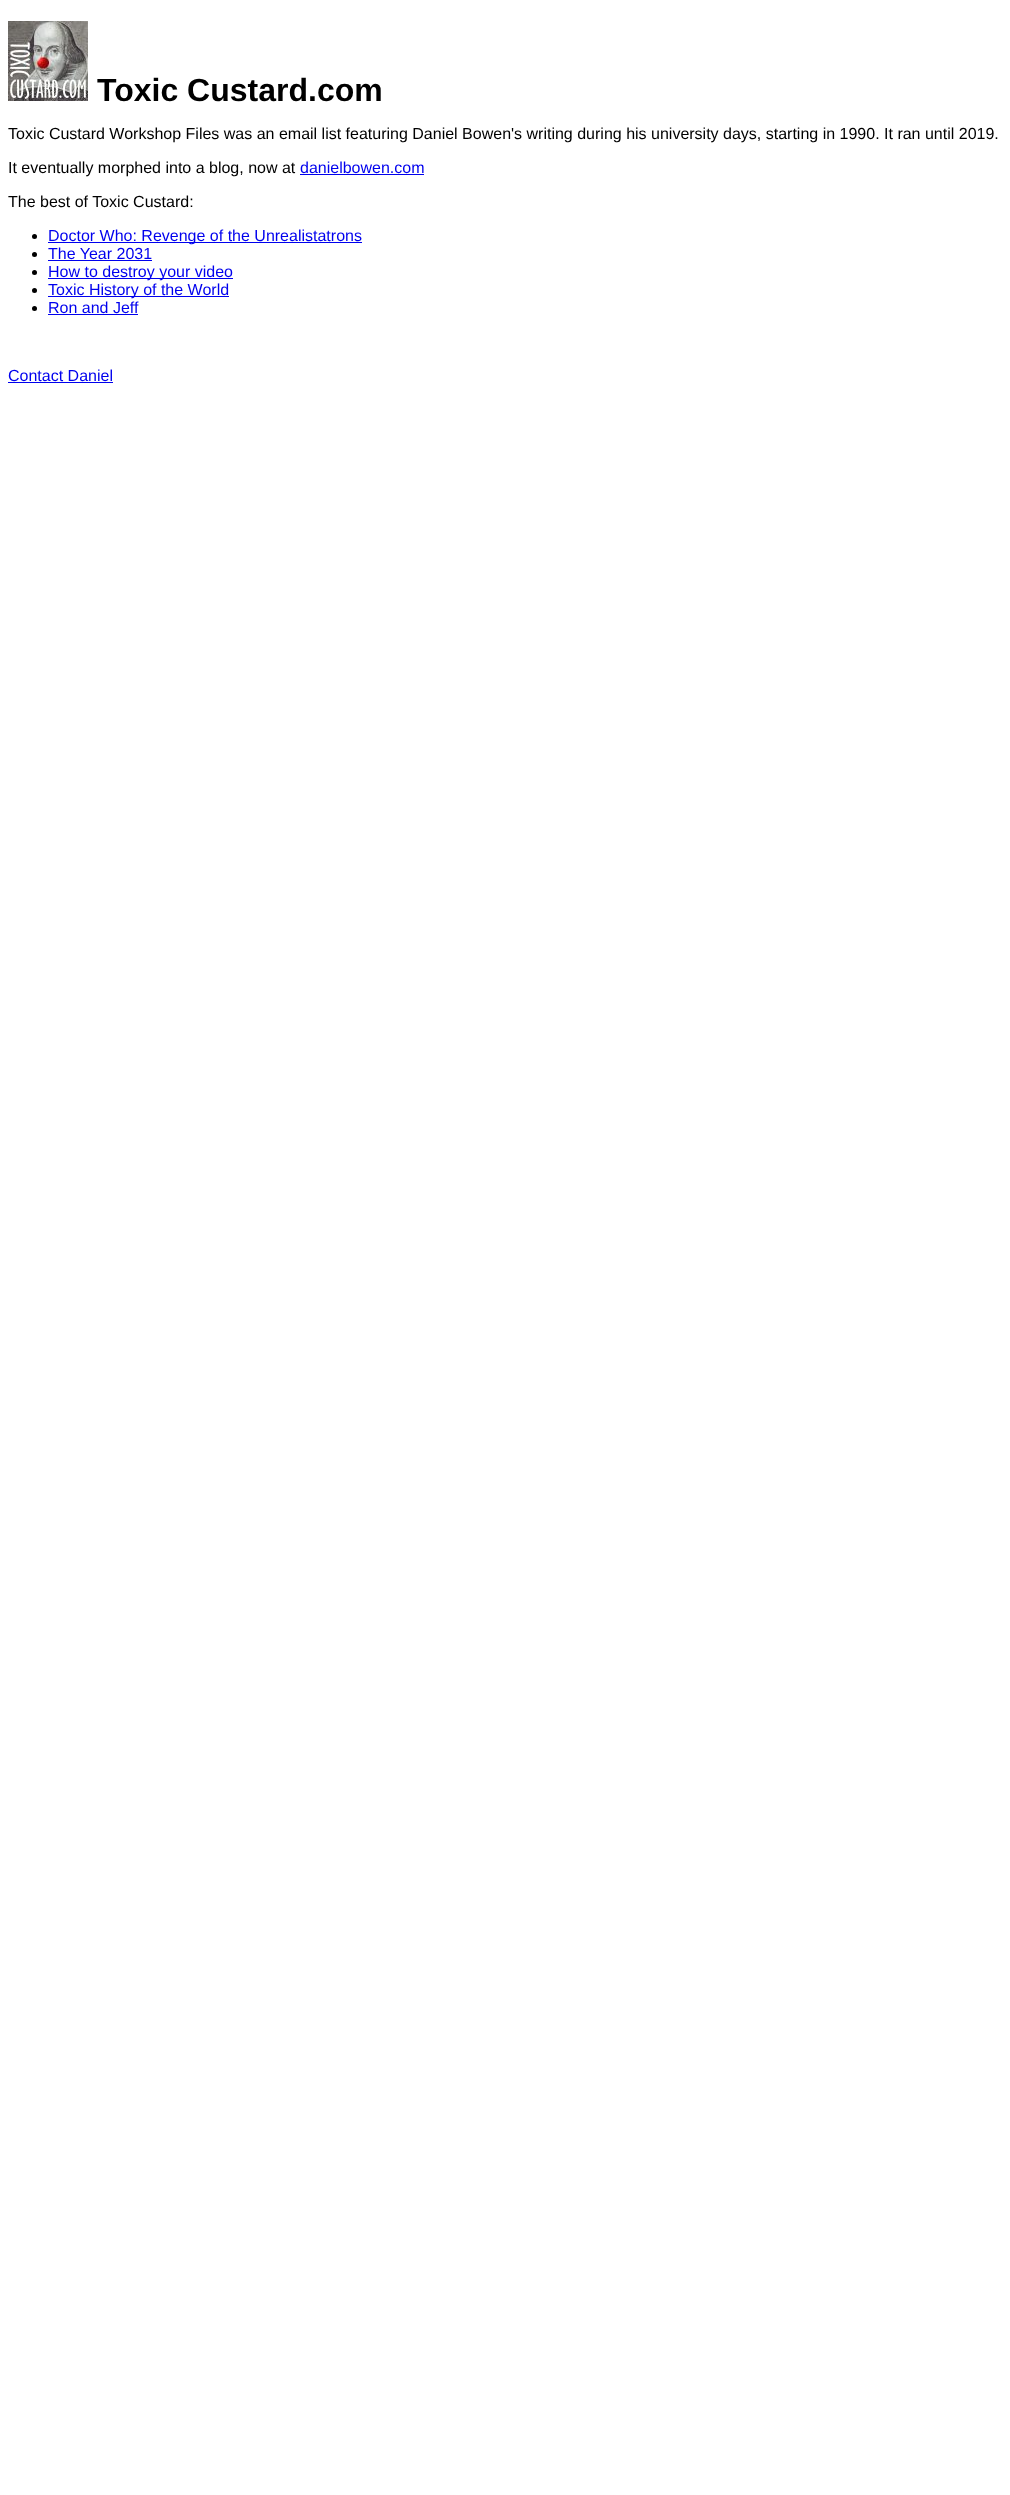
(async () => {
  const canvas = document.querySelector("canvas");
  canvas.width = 1010;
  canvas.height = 2495;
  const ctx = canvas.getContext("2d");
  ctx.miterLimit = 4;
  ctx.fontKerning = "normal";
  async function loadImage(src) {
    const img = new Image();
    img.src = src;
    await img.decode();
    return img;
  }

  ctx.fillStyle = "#ffffff";
  ctx.fillRect(0, 0, 1010, 2495);
  ctx.drawImage(await loadImage("img/1.png"), 8, 21, 80, 80);
  ctx.fillStyle = "#0000ee";
  ctx.fillRect(300, 174, 124, 1);
  ctx.fillStyle = "#000000";
  ctx.beginPath();
  ctx.arc(34.5, 236.5, 2.5, 0, Math.PI * 2);
  ctx.fill();
  ctx.fillStyle = "#0000ee";
  ctx.fillRect(48, 242, 314, 1);
  ctx.fillStyle = "#000000";
  ctx.beginPath();
  ctx.arc(34.5, 254.5, 2.5, 0, Math.PI * 2);
  ctx.fill();
  ctx.fillStyle = "#0000ee";
  ctx.fillRect(48, 260, 104, 1);
  ctx.fillStyle = "#000000";
  ctx.beginPath();
  ctx.arc(34.5, 272.5, 2.5, 0, Math.PI * 2);
  ctx.fill();
  ctx.fillStyle = "#0000ee";
  ctx.fillRect(48, 278, 185, 1);
  ctx.fillStyle = "#000000";
  ctx.beginPath();
  ctx.arc(34.5, 290.5, 2.5, 0, Math.PI * 2);
  ctx.fill();
  ctx.fillStyle = "#0000ee";
  ctx.fillRect(48, 296, 181, 1);
  ctx.fillStyle = "#000000";
  ctx.beginPath();
  ctx.arc(34.5, 308.5, 2.5, 0, Math.PI * 2);
  ctx.fill();
  ctx.fillStyle = "#0000ee";
  ctx.fillRect(48, 314, 90, 1);
  ctx.fillRect(8, 382, 105, 1);
  ctx.font = "bold 32px Liberation Sans";
  ctx.fillStyle = "#000000";
  ctx.fillText("Toxic Custard.com", 97, 101);
  ctx.font = "16px Liberation Sans";
  ctx.fillText("Toxic Custard Workshop Files was an email list featuring Daniel Bowen's writing during his university days, starting in 1990. It ran until 2019.", 8, 139);
  ctx.fillText("It eventually morphed into a blog, now at", 8, 173);
  ctx.fillStyle = "#0000ee";
  ctx.fillText("danielbowen.com", 300, 173);
  ctx.fillStyle = "#000000";
  ctx.fillText("The best of Toxic Custard:", 8, 207);
  ctx.fillStyle = "#0000ee";
  for (const [text, x, y] of [
    ["Doctor Who: Revenge of the Unrealistatrons", 48, 241],
    ["The Year 2031", 48, 259],
    ["How to destroy your video", 48, 277],
    ["Toxic History of the World", 48, 295],
    ["Ron and Jeff", 48, 313],
    ["Contact Daniel", 8, 381],
  ]) {
    ctx.fillText(text, x, y);
  }
})();
